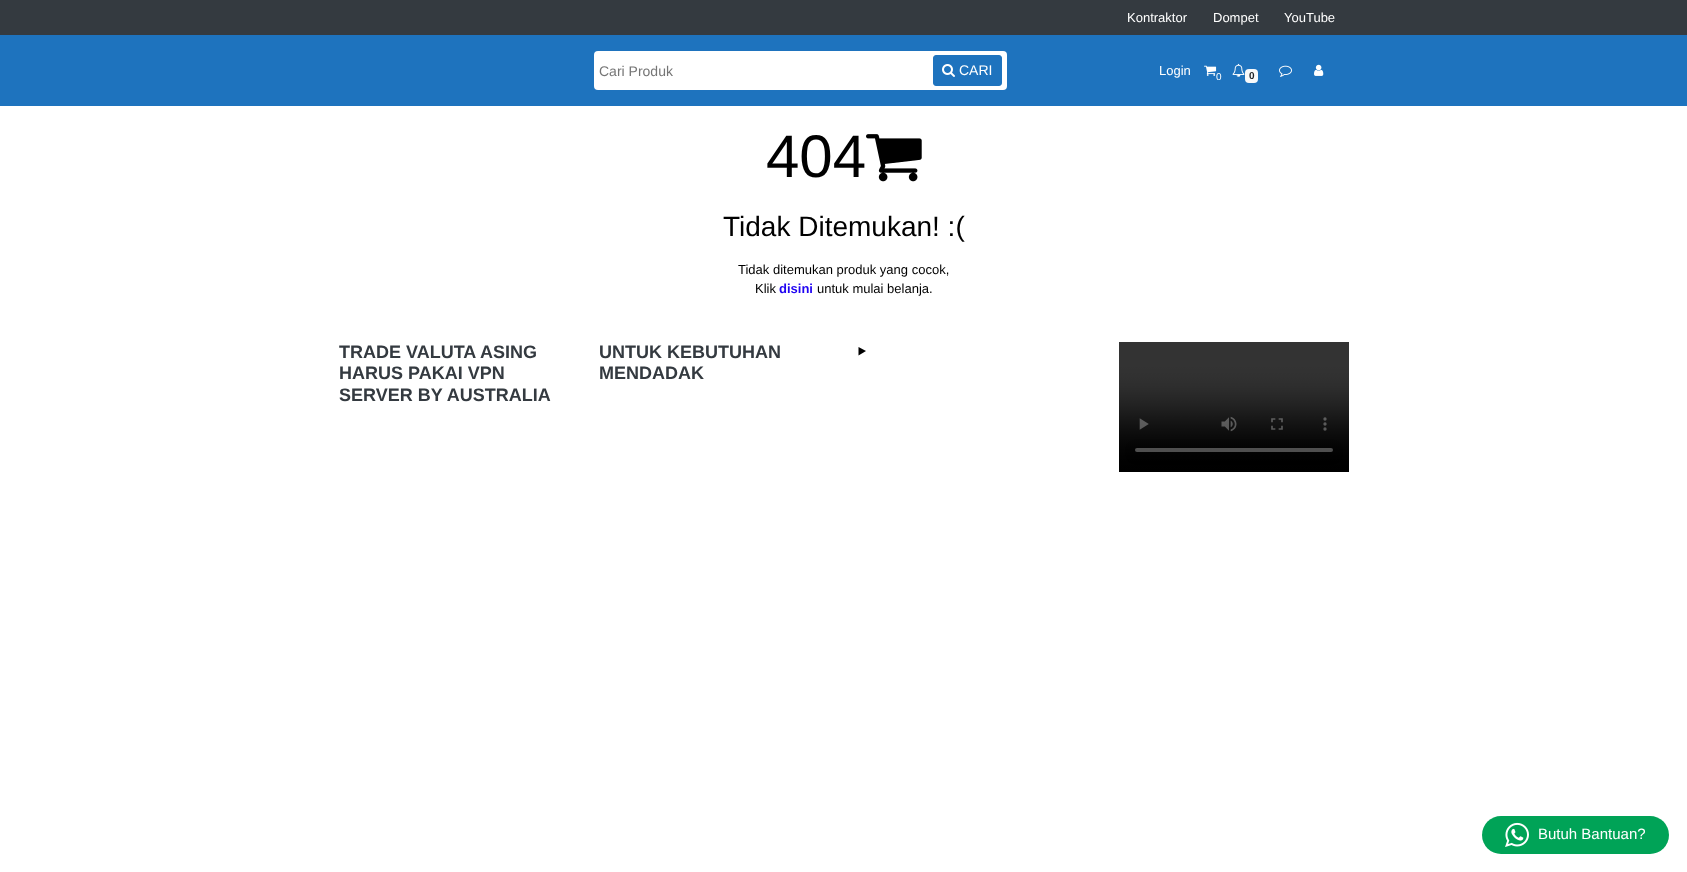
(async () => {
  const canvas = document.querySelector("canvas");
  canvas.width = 1687;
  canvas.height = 872;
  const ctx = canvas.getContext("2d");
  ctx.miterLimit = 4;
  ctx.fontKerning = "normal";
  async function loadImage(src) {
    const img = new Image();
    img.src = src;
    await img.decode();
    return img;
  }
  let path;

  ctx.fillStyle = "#ffffff";
  ctx.fillRect(0, 0, 1687, 872);
  ctx.fillStyle = "#343a40";
  ctx.fillRect(0, 0, 1687, 35);
  ctx.fillStyle = "#1e73be";
  ctx.fillRect(0, 35, 1687, 71);
  ctx.fillStyle = "#ffffff";
  ctx.beginPath();
  ctx.roundRect(594, 51, 413, 39, 4);
  ctx.fill();
  ctx.fillStyle = "#1e73be";
  ctx.beginPath();
  ctx.roundRect(933.5, 55.5, 68, 30, 2.5);
  ctx.fill();
  ctx.strokeStyle = "#1e73be";
  ctx.stroke();
  ctx.drawImage(await loadImage("img/1.png"), 942, 64, 13, 13);
  ctx.drawImage(await loadImage("img/2.png"), 1204, 65, 13, 11);
  ctx.drawImage(await loadImage("img/3.png"), 1232, 63, 13, 14);
  ctx.fillStyle = "#f8f9fa";
  ctx.beginPath();
  ctx.roundRect(1245, 69, 13, 14, 4);
  ctx.fill();
  ctx.drawImage(await loadImage("img/4.png"), 1279, 65, 13, 12);
  ctx.drawImage(await loadImage("img/5.png"), 1314, 64, 10, 12);
  ctx.drawImage(await loadImage("img/6.png"), 866, 134, 56, 48);
  ctx.fillStyle = "#000000";
  path = new Path2D("M858.5 347L866 351L858.5 355.5Z");
  ctx.fill(path);
  ctx.drawImage(await loadImage("img/7.png"), 1119, 342, 230, 130);
  ctx.fillStyle = "#00a357";
  ctx.beginPath();
  ctx.roundRect(1482, 816, 187, 38, 19);
  ctx.fill();
  ctx.drawImage(await loadImage("img/8.png"), 1505, 822, 24, 25);
  ctx.font = "13px Liberation Sans";
  ctx.fillStyle = "#ffffff";
  for (const [text, x, y] of [
    ["Kontraktor", 1127, 22],
    ["Dompet", 1213, 22],
    ["YouTube", 1284, 22],
  ]) {
    ctx.fillText(text, x, y);
  }
  ctx.font = "14px Liberation Sans";
  ctx.fillStyle = "#757575";
  ctx.fillText("Cari Produk", 599, 76);
  ctx.fillStyle = "#ffffff";
  ctx.fillText("CARI", 959, 75);
  ctx.font = "13px Liberation Sans";
  ctx.fillText("Login", 1159, 75);
  ctx.font = "10px Liberation Sans";
  ctx.fillText("0", 1216, 80);
  ctx.font = "bold 10px Liberation Sans";
  ctx.fillStyle = "#212529";
  ctx.fillText("0", 1249, 79);
  ctx.font = "60px Liberation Sans";
  ctx.fillStyle = "#000000";
  ctx.fillText("404", 766, 177);
  ctx.font = "28px Liberation Sans";
  ctx.fillText("Tidak Ditemukan! :(", 723, 236);
  ctx.font = "13px Liberation Sans";
  ctx.fillText("Tidak ditemukan produk yang cocok,", 738, 274);
  ctx.fillText("Klik", 755, 293);
  ctx.font = "bold 13px Liberation Sans";
  ctx.fillStyle = "#2004f2";
  ctx.fillText("disini", 779, 293);
  ctx.font = "13px Liberation Sans";
  ctx.fillStyle = "#000000";
  ctx.fillText("untuk mulai belanja.", 817, 293);
  ctx.font = "bold 18px Liberation Sans";
  ctx.fillStyle = "#343a40";
  for (const [text, x, y] of [
    ["TRADE VALUTA ASING", 339, 358],
    ["HARUS PAKAI VPN", 339, 379],
    ["SERVER BY AUSTRALIA", 339, 401],
    ["UNTUK KEBUTUHAN", 599, 358],
    ["MENDADAK", 599, 379],
  ]) {
    ctx.fillText(text, x, y);
  }
  ctx.font = "15px Liberation Sans";
  ctx.fillStyle = "#ffffff";
  ctx.fillText("Butuh Bantuan?", 1538, 839);
})();
